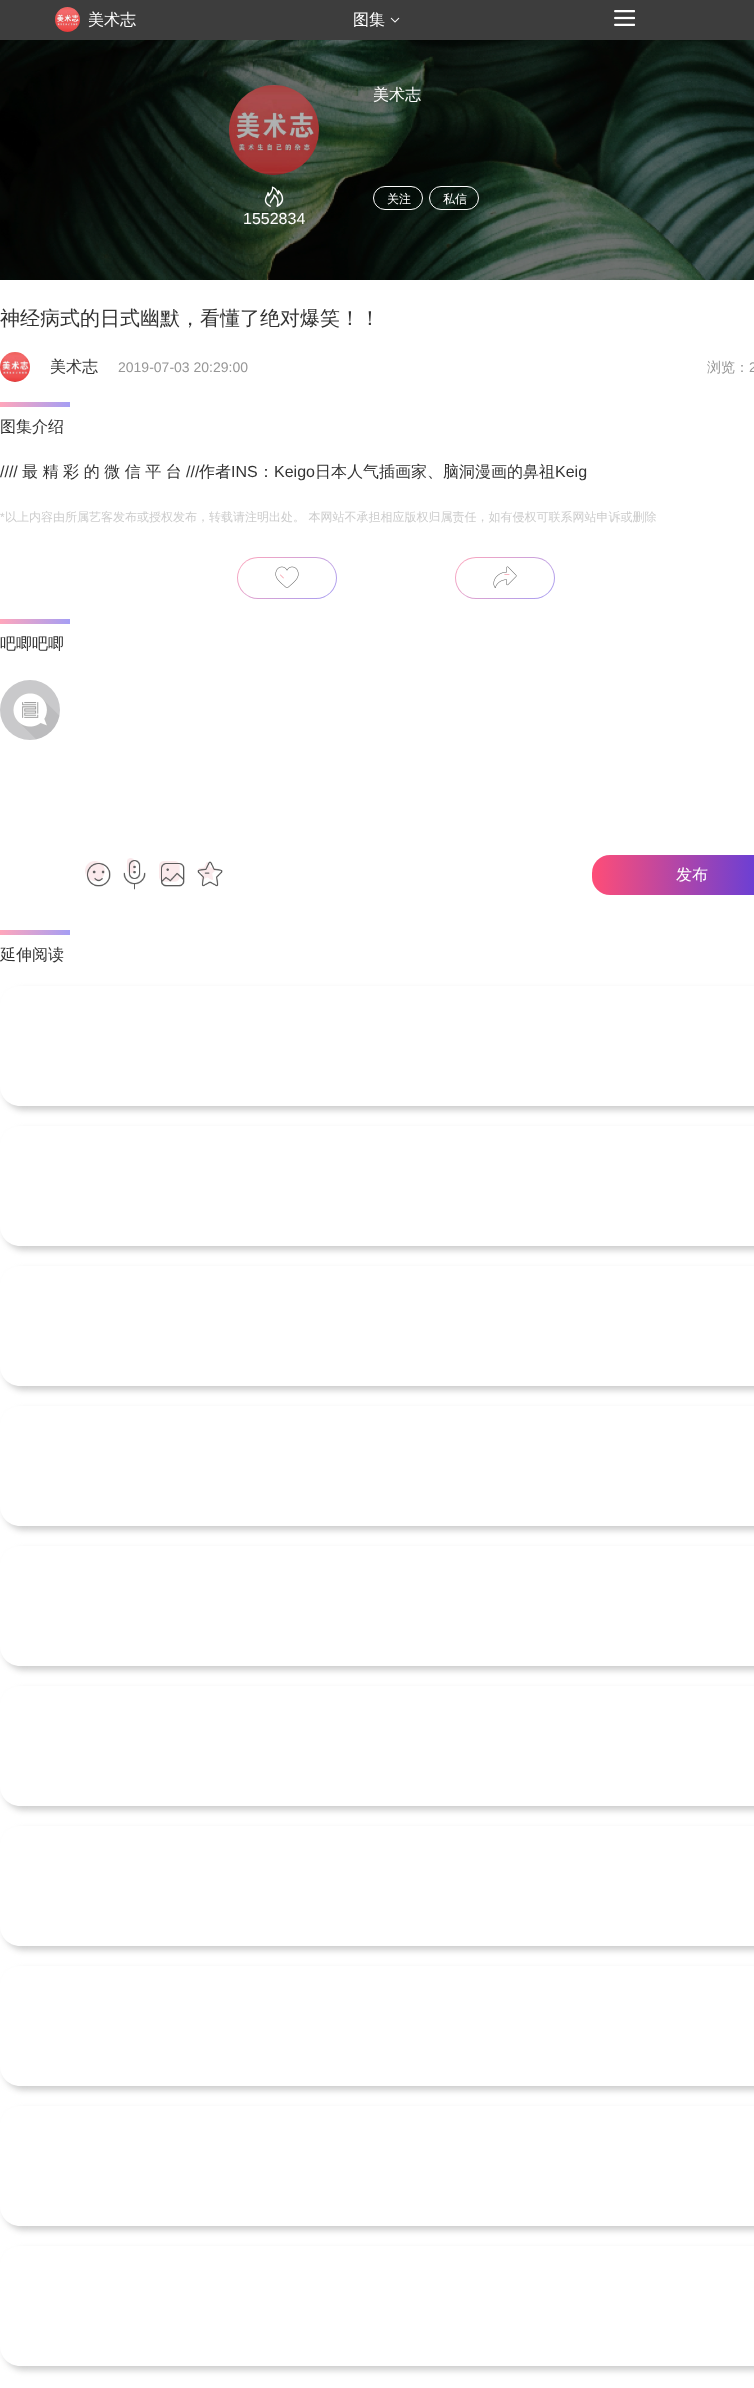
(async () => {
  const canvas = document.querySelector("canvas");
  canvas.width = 754;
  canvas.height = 2388;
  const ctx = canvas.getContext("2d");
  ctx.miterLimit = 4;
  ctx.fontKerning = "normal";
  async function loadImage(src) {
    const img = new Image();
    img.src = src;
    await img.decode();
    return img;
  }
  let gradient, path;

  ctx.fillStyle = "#ffffff";
  ctx.fillRect(0, 0, 754, 2388);
  ctx.fillStyle = "#3d3d3d";
  ctx.fillRect(0, 0, 754, 40);
  ctx.drawImage(await loadImage("img/1.png"), 55, 7, 25, 25);
  ctx.drawImage(await loadImage("img/2.png"), 390, 17, 10, 6);
  ctx.drawImage(await loadImage("img/3.png"), 614, 10, 21, 16);
  ctx.drawImage(await loadImage("img/4.png"), 0, 40, 754, 240);
  ctx.beginPath();
  ctx.roundRect(373.5, 186.5, 49, 23, 11.5);
  ctx.strokeStyle = "#ffffff";
  ctx.stroke();
  ctx.beginPath();
  ctx.roundRect(429.5, 186.5, 49, 23, 11.5);
  ctx.stroke();
  ctx.drawImage(await loadImage("img/5.png"), 229, 85, 90, 90);
  ctx.drawImage(await loadImage("img/6.png"), 264, 186, 20, 21);
  ctx.drawImage(await loadImage("img/7.png"), 0, 352, 30, 30);
  gradient = ctx.createLinearGradient(0, 405, 70, 405);
  gradient.addColorStop(0, "#ffa6bb");
  gradient.addColorStop(1, "#a59ef4");
  ctx.fillStyle = gradient;
  ctx.fillRect(0, 402, 70, 5);
  gradient = ctx.createLinearGradient(252, 543, 323, 614);
  gradient.addColorStop(0, "#ffa6bb");
  gradient.addColorStop(1, "#a59ef4");
  ctx.fillStyle = gradient;
  ctx.beginPath();
  ctx.roundRect(237, 557, 100, 42, 21);
  ctx.fill();
  ctx.fillStyle = "#ffffff";
  ctx.beginPath();
  ctx.roundRect(238, 558, 98, 40, 20);
  ctx.fill();
  ctx.drawImage(await loadImage("img/8.png"), 275, 566, 24, 22);
  gradient = ctx.createLinearGradient(470, 543, 541, 614);
  gradient.addColorStop(0, "#ffa6bb");
  gradient.addColorStop(1, "#a59ef4");
  ctx.fillStyle = gradient;
  ctx.beginPath();
  ctx.roundRect(455, 557, 100, 42, 21);
  ctx.fill();
  ctx.fillStyle = "#ffffff";
  ctx.beginPath();
  ctx.roundRect(456, 558, 98, 40, 20);
  ctx.fill();
  ctx.drawImage(await loadImage("img/9.png"), 493, 566, 24, 22);
  gradient = ctx.createLinearGradient(0, 622, 70, 622);
  gradient.addColorStop(0, "#ffa6bb");
  gradient.addColorStop(1, "#a59ef4");
  ctx.fillStyle = gradient;
  ctx.fillRect(0, 619, 70, 5);
  ctx.drawImage(await loadImage("img/10.png"), 0, 680, 60, 60);
  ctx.drawImage(await loadImage("img/11.png"), 85, 861, 26, 26);
  ctx.drawImage(await loadImage("img/12.png"), 123, 858, 23, 32);
  ctx.drawImage(await loadImage("img/13.png"), 159, 861, 26, 26);
  ctx.drawImage(await loadImage("img/14.png"), 197, 861, 26, 26);
  gradient = ctx.createLinearGradient(592, 875, 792, 875);
  gradient.addColorStop(0, "#ff4d77");
  gradient.addColorStop(1, "#4a3ce9");
  ctx.fillStyle = gradient;
  ctx.beginPath();
  ctx.roundRect(592, 855, 162, 40, [18, 0, 0, 18]);
  ctx.fill();
  gradient = ctx.createLinearGradient(0, 933, 70, 933);
  gradient.addColorStop(0, "#ffa6bb");
  gradient.addColorStop(1, "#a59ef4");
  ctx.fillStyle = gradient;
  ctx.fillRect(0, 930, 70, 5);
  ctx.save();
  path = new Path2D("M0 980H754V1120H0ZM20 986H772C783 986 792 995 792 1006V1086C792 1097 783 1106 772 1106H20C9 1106 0 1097 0 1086V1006C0 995 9 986 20 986Z");
  ctx.clip(path, "evenodd");
  ctx.fillStyle = "#cccccc";
  ctx.filter = "blur(3px)";
  ctx.beginPath();
  ctx.roundRect(4, 990, 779, 120, 20);
  ctx.fill();
  ctx.filter = "none";
  ctx.restore();
  ctx.save();
  path = new Path2D("M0 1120H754V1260H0ZM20 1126H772C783 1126 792 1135 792 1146V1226C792 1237 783 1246 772 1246H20C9 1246 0 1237 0 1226V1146C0 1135 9 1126 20 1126Z");
  ctx.clip(path, "evenodd");
  ctx.fillStyle = "#cccccc";
  ctx.filter = "blur(3px)";
  ctx.beginPath();
  ctx.roundRect(4, 1130, 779, 120, 20);
  ctx.fill();
  ctx.filter = "none";
  ctx.restore();
  ctx.save();
  path = new Path2D("M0 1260H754V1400H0ZM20 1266H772C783 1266 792 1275 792 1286V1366C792 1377 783 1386 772 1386H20C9 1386 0 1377 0 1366V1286C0 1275 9 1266 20 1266Z");
  ctx.clip(path, "evenodd");
  ctx.fillStyle = "#cccccc";
  ctx.filter = "blur(3px)";
  ctx.beginPath();
  ctx.roundRect(4, 1270, 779, 120, 20);
  ctx.fill();
  ctx.filter = "none";
  ctx.restore();
  ctx.save();
  path = new Path2D("M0 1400H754V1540H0ZM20 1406H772C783 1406 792 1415 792 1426V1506C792 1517 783 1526 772 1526H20C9 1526 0 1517 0 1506V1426C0 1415 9 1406 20 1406Z");
  ctx.clip(path, "evenodd");
  ctx.fillStyle = "#cccccc";
  ctx.filter = "blur(3px)";
  ctx.beginPath();
  ctx.roundRect(4, 1410, 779, 120, 20);
  ctx.fill();
  ctx.filter = "none";
  ctx.restore();
  ctx.save();
  path = new Path2D("M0 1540H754V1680H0ZM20 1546H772C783 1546 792 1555 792 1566V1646C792 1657 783 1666 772 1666H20C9 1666 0 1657 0 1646V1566C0 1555 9 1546 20 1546Z");
  ctx.clip(path, "evenodd");
  ctx.fillStyle = "#cccccc";
  ctx.filter = "blur(3px)";
  ctx.beginPath();
  ctx.roundRect(4, 1550, 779, 120, 20);
  ctx.fill();
  ctx.filter = "none";
  ctx.restore();
  ctx.save();
  path = new Path2D("M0 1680H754V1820H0ZM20 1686H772C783 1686 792 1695 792 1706V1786C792 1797 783 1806 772 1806H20C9 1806 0 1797 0 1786V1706C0 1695 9 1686 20 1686Z");
  ctx.clip(path, "evenodd");
  ctx.fillStyle = "#cccccc";
  ctx.filter = "blur(3px)";
  ctx.beginPath();
  ctx.roundRect(4, 1690, 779, 120, 20);
  ctx.fill();
  ctx.filter = "none";
  ctx.restore();
  ctx.save();
  path = new Path2D("M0 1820H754V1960H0ZM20 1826H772C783 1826 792 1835 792 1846V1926C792 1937 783 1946 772 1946H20C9 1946 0 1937 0 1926V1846C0 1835 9 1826 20 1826Z");
  ctx.clip(path, "evenodd");
  ctx.fillStyle = "#cccccc";
  ctx.filter = "blur(3px)";
  ctx.beginPath();
  ctx.roundRect(4, 1830, 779, 120, 20);
  ctx.fill();
  ctx.filter = "none";
  ctx.restore();
  ctx.save();
  path = new Path2D("M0 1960H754V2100H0ZM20 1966H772C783 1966 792 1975 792 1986V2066C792 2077 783 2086 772 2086H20C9 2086 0 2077 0 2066V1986C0 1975 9 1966 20 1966Z");
  ctx.clip(path, "evenodd");
  ctx.fillStyle = "#cccccc";
  ctx.filter = "blur(3px)";
  ctx.beginPath();
  ctx.roundRect(4, 1970, 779, 120, 20);
  ctx.fill();
  ctx.filter = "none";
  ctx.restore();
  ctx.save();
  path = new Path2D("M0 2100H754V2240H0ZM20 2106H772C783 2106 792 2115 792 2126V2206C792 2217 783 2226 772 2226H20C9 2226 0 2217 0 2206V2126C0 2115 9 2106 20 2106Z");
  ctx.clip(path, "evenodd");
  ctx.fillStyle = "#cccccc";
  ctx.filter = "blur(3px)";
  ctx.beginPath();
  ctx.roundRect(4, 2110, 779, 120, 20);
  ctx.fill();
  ctx.filter = "none";
  ctx.restore();
  ctx.save();
  path = new Path2D("M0 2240H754V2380H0ZM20 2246H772C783 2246 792 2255 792 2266V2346C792 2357 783 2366 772 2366H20C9 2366 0 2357 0 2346V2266C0 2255 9 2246 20 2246Z");
  ctx.clip(path, "evenodd");
  ctx.fillStyle = "#cccccc";
  ctx.filter = "blur(3px)";
  ctx.beginPath();
  ctx.roundRect(4, 2250, 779, 120, 20);
  ctx.fill();
  ctx.filter = "none";
  ctx.restore();
  ctx.font = "500 16px WenQuanYi Zen Hei";
  ctx.fillStyle = "#ffffff";
  for (const [text, x, y] of [
    ["美术志", 88, 25],
    ["图集", 353, 25],
    ["美术志", 373, 100],
  ]) {
    ctx.fillText(text, x, y);
  }
  ctx.font = "500 12px WenQuanYi Zen Hei";
  ctx.fillText("关注", 387, 203);
  ctx.fillText("私信", 443, 203);
  ctx.font = "16px Liberation Sans";
  ctx.fillText("1552834", 243, 224);
  ctx.font = "500 20px WenQuanYi Zen Hei";
  ctx.fillStyle = "#333333";
  ctx.fillText("神经病式的日式幽默，看懂了绝对爆笑！！", 0, 325);
  ctx.font = "500 16px WenQuanYi Zen Hei";
  ctx.fillText("美术志", 50, 372);
  ctx.font = "14px Liberation Sans";
  ctx.fillStyle = "#969696";
  ctx.fillText("2019-07-03 20:29:00", 118, 372);
  ctx.font = "500 14px WenQuanYi Zen Hei";
  ctx.fillText("浏览：", 707, 372);
  ctx.font = "14px Liberation Sans";
  ctx.fillText("2", 749, 372);
  ctx.font = "500 16px WenQuanYi Zen Hei";
  ctx.fillStyle = "#333333";
  ctx.fillText("图集介绍", 0, 432);
  ctx.font = "16px Liberation Sans";
  ctx.fillText("////", 0, 477);
  ctx.wordSpacing = "-0.25px";
  ctx.font = "500 16px WenQuanYi Zen Hei";
  ctx.fillText("最 精 彩 的 微 信 平 台", 22, 477);
  ctx.wordSpacing = "0px";
  ctx.font = "16px Liberation Sans";
  ctx.fillText("///", 186, 477);
  ctx.font = "500 16px WenQuanYi Zen Hei";
  ctx.fillText("作者", 199, 477);
  ctx.font = "16px Liberation Sans";
  ctx.fillText("INS", 231, 477);
  ctx.font = "500 16px WenQuanYi Zen Hei";
  ctx.fillText("：", 258, 477);
  ctx.font = "16px Liberation Sans";
  ctx.fillText("Keigo", 274, 477);
  ctx.font = "500 16px WenQuanYi Zen Hei";
  ctx.fillText("日本人气插画家、脑洞漫画的鼻祖", 315, 477);
  ctx.font = "16px Liberation Sans";
  ctx.fillText("Keig", 555, 477);
  ctx.font = "12px Liberation Sans";
  ctx.fillStyle = "#cccccc";
  ctx.fillText("*", 0, 521);
  ctx.font = "500 12px WenQuanYi Zen Hei";
  ctx.fillText("以上内容由所属艺客发布或授权发布，转载请注明出处。 本网站不承担相应版权归属责任，如有侵权可联系网站申诉或删除", 5, 521);
  ctx.font = "500 16px WenQuanYi Zen Hei";
  ctx.fillStyle = "#333333";
  ctx.fillText("吧唧吧唧", 0, 649);
  ctx.fillStyle = "#ffffff";
  ctx.fillText("发布", 676, 880);
  ctx.fillStyle = "#333333";
  ctx.fillText("延伸阅读", 0, 960);
})();
